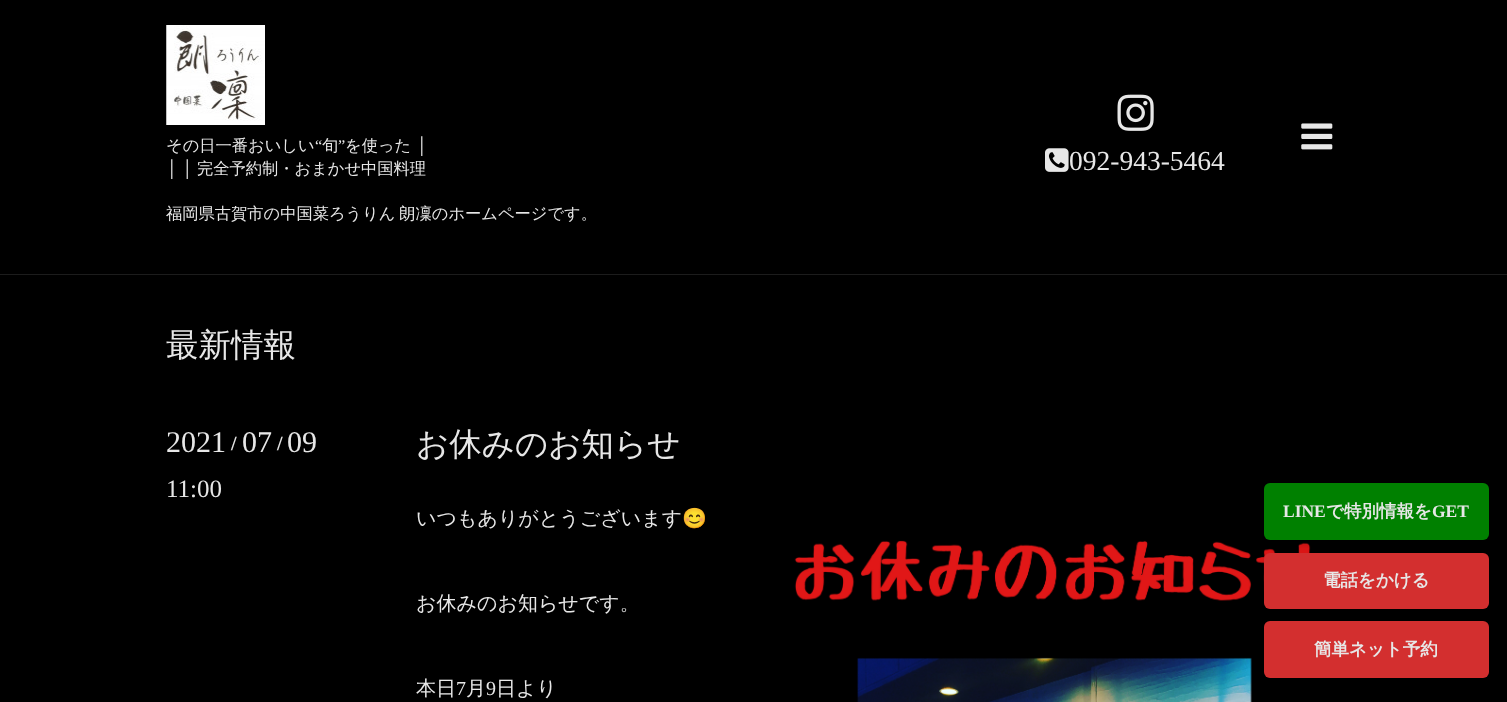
(async () => {
  const canvas = document.querySelector("canvas");
  canvas.width = 1507;
  canvas.height = 702;
  const ctx = canvas.getContext("2d");
  ctx.miterLimit = 4;
  ctx.fontKerning = "normal";
  async function loadImage(src) {
    const img = new Image();
    img.src = src;
    await img.decode();
    return img;
  }

  ctx.fillStyle = "#000000";
  ctx.fillRect(0, 0, 1507, 702);
  ctx.fillStyle = "#1c1c1c";
  ctx.fillRect(0, 274, 1507, 1);
  ctx.drawImage(await loadImage("img/1.png"), 166, 25, 99, 100);
  ctx.drawImage(await loadImage("img/2.png"), 1301, 123, 32, 27);
  ctx.drawImage(await loadImage("img/3.png"), 1117, 94, 37, 37);
  ctx.drawImage(await loadImage("img/4.png"), 1045, 148, 24, 24);
  ctx.drawImage(await loadImage("img/5.png"), 794, 540, 524, 162);
  ctx.fillStyle = "rgba(0, 0, 0, 0.2)";
  ctx.filter = "blur(4px)";
  ctx.beginPath();
  ctx.roundRect(1264, 488, 225, 57, 6);
  ctx.fill();
  ctx.filter = "none";
  ctx.fillStyle = "#008000";
  ctx.beginPath();
  ctx.roundRect(1264, 483, 225, 57, 6);
  ctx.fill();
  ctx.fillStyle = "rgba(0, 0, 0, 0.2)";
  ctx.filter = "blur(4px)";
  ctx.beginPath();
  ctx.roundRect(1264, 558, 225, 56, 6);
  ctx.fill();
  ctx.filter = "none";
  ctx.fillStyle = "#d32f2f";
  ctx.beginPath();
  ctx.roundRect(1264, 553, 225, 56, 6);
  ctx.fill();
  ctx.beginPath();
  ctx.roundRect(1264, 621, 225, 57, 6);
  ctx.fill();
  ctx.font = "500 16.25px WenQuanYi Zen Hei";
  ctx.fillStyle = "#e7e7e7";
  ctx.fillText("その日一番おいしい", 166, 151);
  ctx.font = "16.25px Liberation Serif";
  ctx.fillText("“", 315, 151);
  ctx.font = "500 16.25px WenQuanYi Zen Hei";
  ctx.fillText("旬", 322, 151);
  ctx.font = "16.25px Liberation Serif";
  ctx.fillText("”", 338, 151);
  ctx.font = "500 16.25px WenQuanYi Zen Hei";
  ctx.fillText("を使った", 345, 151);
  ctx.font = "16.25px Liberation Serif";
  ctx.fillText("│", 416, 151);
  ctx.fillText("│ │", 166, 174);
  ctx.font = "500 16.25px WenQuanYi Zen Hei";
  ctx.fillText("完全予約制・おまかせ中国料理", 197, 174);
  ctx.wordSpacing = "-1px";
  ctx.fillText("福岡県古賀市の中国菜ろうりん 朗凜のホームページです。", 166, 219);
  ctx.wordSpacing = "0px";
  ctx.font = "27.5px Liberation Serif";
  ctx.fillText("092-943-5464", 1069, 170);
  ctx.font = "500 32.5px WenQuanYi Zen Hei";
  ctx.fillText("最新情報", 166, 356);
  ctx.font = "30px Liberation Serif";
  ctx.fillText("2021", 166, 452);
  ctx.font = "bold 20px Liberation Serif";
  ctx.fillText("/", 231, 450);
  ctx.font = "30px Liberation Serif";
  ctx.fillText("07", 242, 452);
  ctx.font = "bold 20px Liberation Serif";
  ctx.fillText("/", 277, 450);
  ctx.font = "30px Liberation Serif";
  ctx.fillText("09", 287, 452);
  ctx.font = "25px Liberation Serif";
  ctx.fillText("11:00", 166, 497);
  ctx.font = "500 32.5px WenQuanYi Zen Hei";
  ctx.fillText("お休みのお知らせ", 416, 455);
  ctx.font = "500 20px WenQuanYi Zen Hei";
  ctx.fillText("いつもありがとうございます", 416, 525);
  ctx.font = "20px Noto Color Emoji";
  ctx.fillText("😊", 682, 525);
  ctx.font = "500 20px WenQuanYi Zen Hei";
  ctx.fillText("お休みのお知らせです。", 416, 610);
  ctx.fillText("本日", 416, 695);
  ctx.font = "20px Liberation Serif";
  ctx.fillText("7", 456, 695);
  ctx.font = "500 20px WenQuanYi Zen Hei";
  ctx.fillText("月", 466, 695);
  ctx.font = "20px Liberation Serif";
  ctx.fillText("9", 486, 695);
  ctx.font = "500 20px WenQuanYi Zen Hei";
  ctx.fillText("日より", 496, 695);
  ctx.font = "bold 17.5px Liberation Serif";
  ctx.fillText("LINE", 1283, 517);
  ctx.font = "bold 17.5px WenQuanYi Zen Hei";
  ctx.fillText("で特別情報を", 1326, 517);
  ctx.font = "bold 17.5px Liberation Serif";
  ctx.fillText("GET", 1432, 517);
  ctx.font = "bold 17.5px WenQuanYi Zen Hei";
  ctx.fillText("電話をかける", 1323, 586);
  ctx.fillText("簡単ネット予約", 1314, 655);
})();
